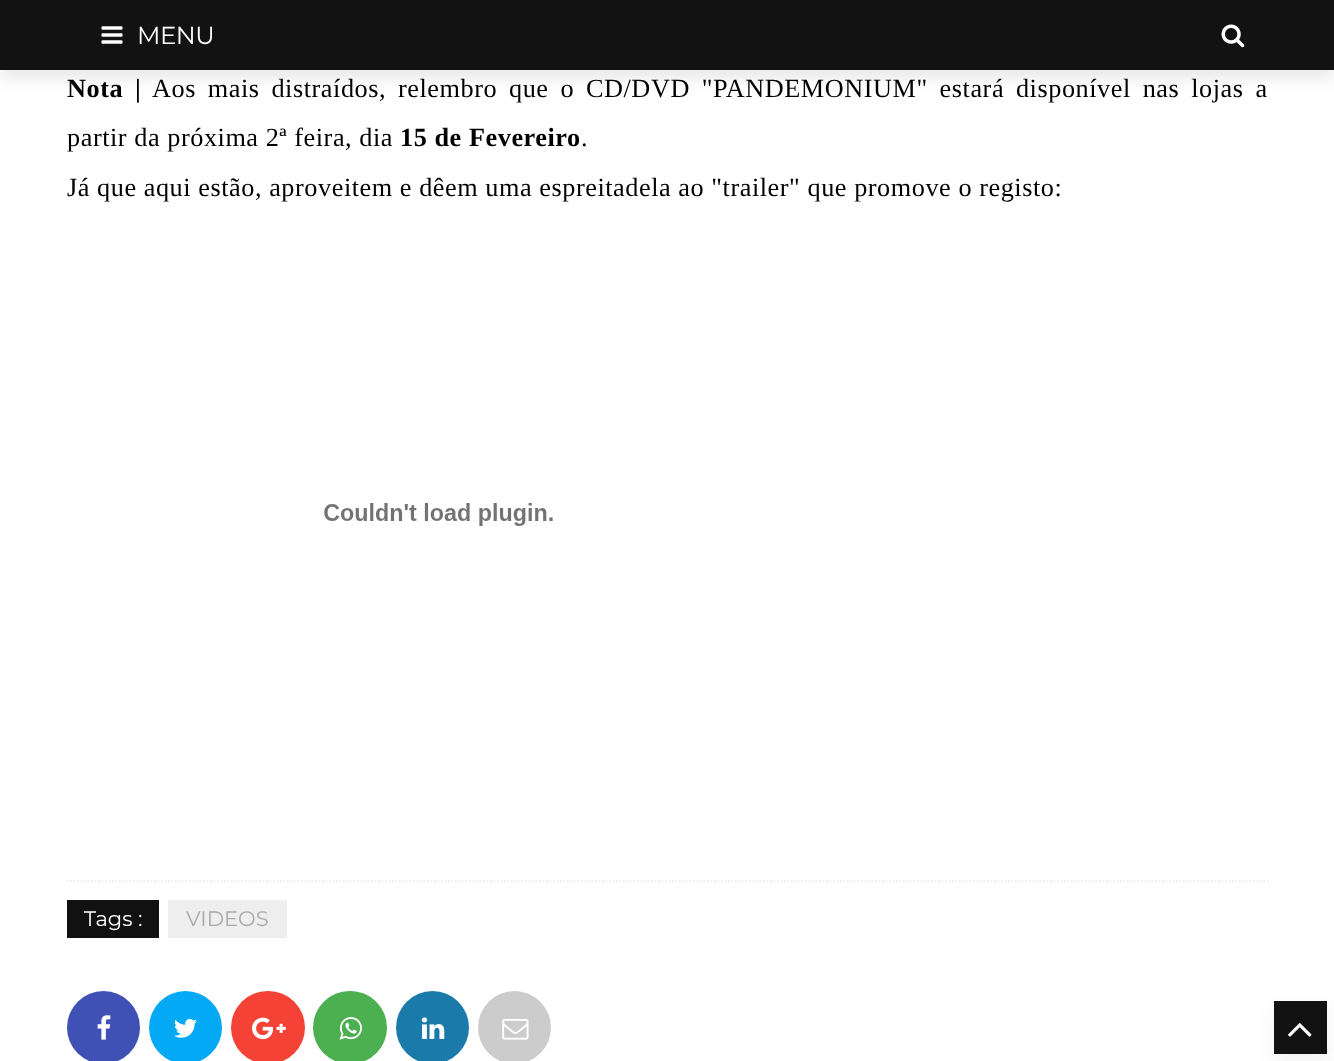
(async () => {
  const canvas = document.querySelector("canvas");
  canvas.width = 1334;
  canvas.height = 1061;
  const ctx = canvas.getContext("2d");
  ctx.miterLimit = 4;
  ctx.fontKerning = "normal";
  async function loadImage(src) {
    const img = new Image();
    img.src = src;
    await img.decode();
    return img;
  }
  let path;

  ctx.fillStyle = "#ffffff";
  ctx.fillRect(0, 0, 1334, 1061);
  ctx.fillStyle = "rgba(0, 0, 0, 0.1)";
  ctx.filter = "blur(9px)";
  ctx.beginPath();
  ctx.rect(0, 7, 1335, 70);
  ctx.fill();
  ctx.filter = "none";
  ctx.fillStyle = "#121212";
  ctx.fillRect(0, 0, 1334, 70);
  ctx.drawImage(await loadImage("img/1.png"), 101, 26, 22, 18);
  ctx.drawImage(await loadImage("img/2.png"), 1221, 24, 24, 24);
  path = new Path2D("M66.5 881H1269");
  ctx.strokeStyle = "#eeeeee";
  ctx.lineWidth = 1.8;
  ctx.setLineDash([1.75, 1.75]);
  ctx.stroke(path);
  ctx.drawImage(await loadImage("img/3.png"), 324, 503, 229, 23);
  ctx.fillStyle = "#111111";
  ctx.fillRect(67, 900, 92, 38);
  ctx.fillStyle = "#eeeeee";
  ctx.fillRect(168, 900, 119, 38);
  ctx.fillStyle = "#3f51b5";
  ctx.beginPath();
  ctx.arc(103.5, 1027.5, 36.5, 0, Math.PI * 2);
  ctx.fill();
  ctx.drawImage(await loadImage("img/4.png"), 97, 1015, 14, 25);
  ctx.fillStyle = "#03a9f4";
  ctx.beginPath();
  ctx.arc(185.5, 1027.5, 36.5, 0, Math.PI * 2);
  ctx.fill();
  ctx.drawImage(await loadImage("img/5.png"), 174, 1019, 23, 19);
  ctx.fillStyle = "#f44336";
  ctx.beginPath();
  ctx.roundRect(231, 991, 74, 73, 36.5);
  ctx.fill();
  ctx.drawImage(await loadImage("img/6.png"), 252, 1017, 34, 23);
  ctx.fillStyle = "#4caf50";
  ctx.beginPath();
  ctx.roundRect(313, 991, 74, 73, 36.5);
  ctx.fill();
  ctx.drawImage(await loadImage("img/7.png"), 339, 1017, 23, 23);
  ctx.fillStyle = "#1a7baa";
  ctx.beginPath();
  ctx.arc(432.5, 1027.5, 36.5, 0, Math.PI * 2);
  ctx.fill();
  ctx.drawImage(await loadImage("img/8.png"), 421, 1017, 24, 22);
  ctx.fillStyle = "#cccccc";
  ctx.beginPath();
  ctx.arc(514.5, 1027.5, 36.5, 0, Math.PI * 2);
  ctx.fill();
  ctx.drawImage(await loadImage("img/9.png"), 502, 1019, 27, 21);
  ctx.fillStyle = "rgba(0, 0, 0, 0.05)";
  ctx.filter = "blur(9px)";
  ctx.beginPath();
  ctx.rect(1274, 1008, 53, 53);
  ctx.fill();
  ctx.filter = "none";
  ctx.fillStyle = "#121212";
  ctx.fillRect(1274, 1001, 53, 53);
  ctx.drawImage(await loadImage("img/10.png"), 1288, 1023, 24, 14);
  ctx.letterSpacing = "-0.5px";
  ctx.font = "24.5px Montserrat";
  ctx.fillStyle = "#ffffff";
  ctx.fillText("MENU", 137, 44);
  ctx.letterSpacing = "0.55px";
  ctx.wordSpacing = "4.75px";
  ctx.font = "bold 26.25px Liberation Serif";
  ctx.fillStyle = "#000000";
  ctx.fillText("Nota |", 67, 97);
  ctx.font = "26.25px Liberation Serif";
  ctx.fillText("Aos mais distraídos, relembro que o CD/DVD \"PANDEMONIUM\" estará disponível nas lojas a", 152, 97);
  ctx.wordSpacing = "0px";
  ctx.fillText("partir da próxima 2ª feira, dia", 67, 146);
  ctx.font = "bold 26.25px Liberation Serif";
  ctx.fillText("15 de Fevereiro", 400, 146);
  ctx.font = "26.25px Liberation Serif";
  ctx.fillText(".", 581, 146);
  ctx.fillText("Já que aqui estão, aproveitem e dêem uma espreitadela ao \"trailer\" que promove o registo:", 67, 196);
  ctx.letterSpacing = "0px";
  ctx.font = "21px Montserrat";
  ctx.fillStyle = "#ffffff";
  ctx.fillText("Tags :", 84, 926);
  ctx.fillStyle = "#aaaaaa";
  ctx.fillText("VIDEOS", 186, 926);
})();
